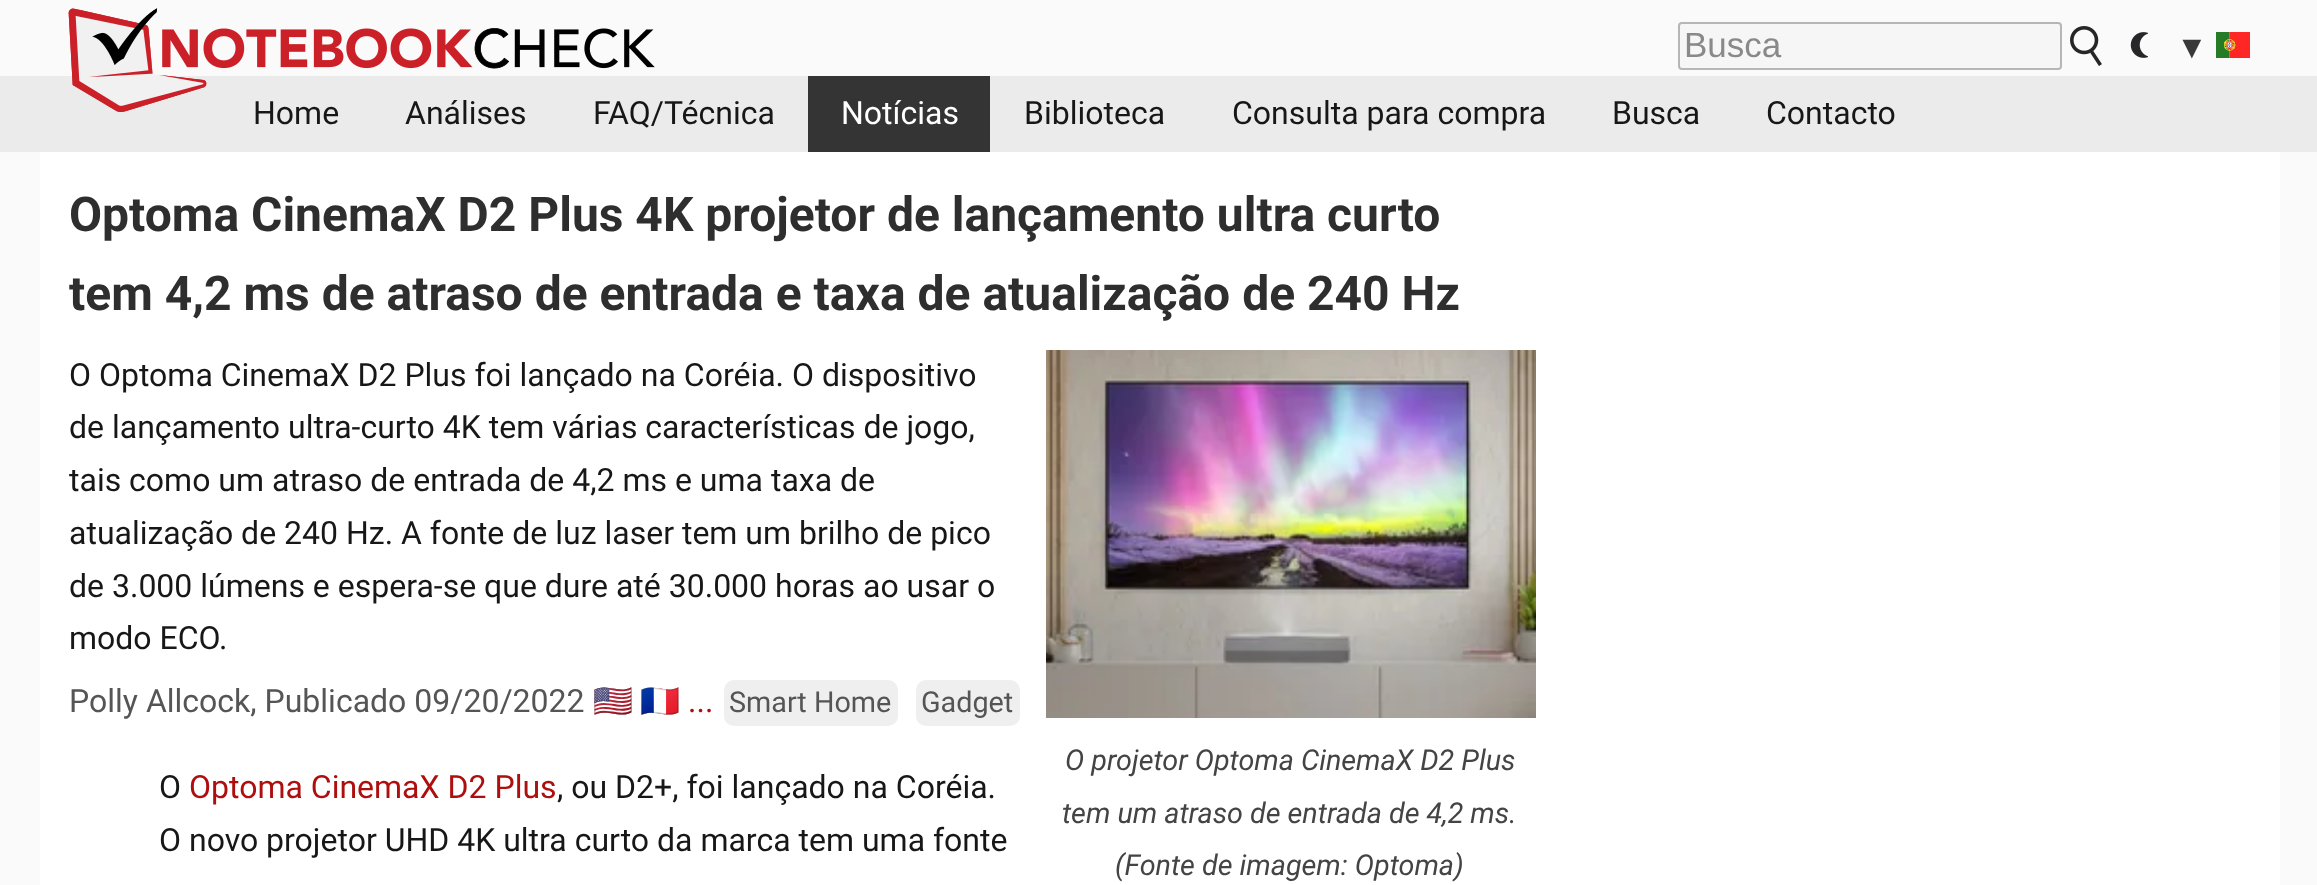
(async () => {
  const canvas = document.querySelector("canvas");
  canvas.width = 2317;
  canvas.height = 885;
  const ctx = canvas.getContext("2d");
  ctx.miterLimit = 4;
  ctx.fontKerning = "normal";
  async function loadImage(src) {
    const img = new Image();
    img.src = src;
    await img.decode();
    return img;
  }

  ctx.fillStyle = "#fafafa";
  ctx.fillRect(0, 0, 2317, 885);
  ctx.drawImage(await loadImage("img/1.png"), 68, 8, 587, 104);
  ctx.fillStyle = "rgba(0, 0, 0, 0.06)";
  ctx.fillRect(0, 76, 2317, 76);
  ctx.drawImage(await loadImage("img/2.png"), 68, 8, 138, 104);
  ctx.fillStyle = "#f6f6f6";
  ctx.beginPath();
  ctx.roundRect(1679, 23, 382, 46, 3);
  ctx.fill();
  ctx.strokeStyle = "#b6b6b6";
  ctx.lineWidth = 2;
  ctx.stroke();
  ctx.drawImage(await loadImage("img/3.png"), 2070, 26, 32, 40);
  ctx.drawImage(await loadImage("img/4.png"), 2130, 32, 18, 26);
  ctx.drawImage(await loadImage("img/5.png"), 2216, 32, 34, 26);
  ctx.fillStyle = "#343434";
  ctx.fillRect(808, 76, 182, 76);
  ctx.fillStyle = "#ffffff";
  ctx.fillRect(40, 152, 2240, 733);
  ctx.fillStyle = "#efefef";
  ctx.beginPath();
  ctx.roundRect(724, 680, 174, 46, 10);
  ctx.fill();
  ctx.beginPath();
  ctx.roundRect(916, 680, 104, 46, 10);
  ctx.fill();
  ctx.drawImage(await loadImage("img/6.png"), 1046, 350, 490, 368);
  ctx.font = "35px Liberation Sans";
  ctx.fillStyle = "#898989";
  ctx.fillText("Busca", 1684, 57);
  ctx.font = "32px Liberation Sans";
  ctx.fillStyle = "#393939";
  ctx.fillText("▼", 2176, 58);
  ctx.font = "32px Roboto";
  ctx.fillStyle = "#171717";
  for (const [text, x, y] of [
    ["Home", 253, 124],
    ["Análises", 405, 124],
    ["FAQ/Técnica", 593, 124],
  ]) {
    ctx.fillText(text, x, y);
  }
  ctx.fillStyle = "#ffffff";
  ctx.fillText("Notícias", 841, 124);
  ctx.fillStyle = "#171717";
  for (const [text, x, y] of [
    ["Biblioteca", 1024, 124],
    ["Consulta para compra", 1232, 124],
    ["Busca", 1612, 124],
    ["Contacto", 1766, 124],
  ]) {
    ctx.fillText(text, x, y);
  }
  ctx.font = "bold 48px Roboto";
  ctx.fillStyle = "#2e2e2e";
  ctx.fillText("Optoma CinemaX D2 Plus 4K projetor de lançamento ultra curto", 69, 231);
  ctx.fillText("tem 4,2 ms de atraso de entrada e taxa de atualização de 240 Hz", 69, 310);
  ctx.font = "32px Roboto";
  ctx.fillStyle = "#171717";
  for (const [text, x, y] of [
    ["O Optoma CinemaX D2 Plus foi lançado na Coréia. O dispositivo", 69, 386],
    ["de lançamento ultra-curto 4K tem várias características de jogo,", 69, 438],
    ["tais como um atraso de entrada de 4,2 ms e uma taxa de", 69, 491],
    ["atualização de 240 Hz. A fonte de luz laser tem um brilho de pico", 69, 544],
    ["de 3.000 lúmens e espera-se que dure até 30.000 horas ao usar o", 69, 597],
    ["modo ECO.", 69, 649],
  ]) {
    ctx.fillText(text, x, y);
  }
  ctx.fillStyle = "#555555";
  ctx.fillText("Polly Allcock, Publicado 09/20/2022", 69, 712);
  ctx.font = "32px Noto Color Emoji";
  ctx.fillStyle = "#af0e0e";
  ctx.fillText("🇺🇸", 593, 712);
  ctx.fillText("🇫🇷", 640, 712);
  ctx.font = "32px Roboto";
  ctx.fillText("...", 688, 712);
  ctx.font = "28.75px Roboto";
  ctx.fillStyle = "#555555";
  ctx.fillText("Smart Home", 729, 712);
  ctx.fillText("Gadget", 921, 712);
  ctx.font = "italic 28.75px Roboto";
  ctx.fillStyle = "#444444";
  for (const [text, x, y] of [
    ["O projetor Optoma CinemaX D2 Plus", 1065, 770],
    ["tem um atraso de entrada de 4,2 ms.", 1062, 823],
    ["(Fonte de imagem: Optoma)", 1115, 875],
  ]) {
    ctx.fillText(text, x, y);
  }
  ctx.font = "32px Roboto";
  ctx.fillStyle = "#171717";
  ctx.fillText("O", 159, 798);
  ctx.fillStyle = "#af0e0e";
  ctx.fillText("Optoma CinemaX D2 Plus", 189, 798);
  ctx.fillStyle = "#171717";
  ctx.fillText(", ou D2+, foi lançado na Coréia.", 557, 798);
  ctx.fillText("O novo projetor UHD 4K ultra curto da marca tem uma fonte", 159, 851);
})();
